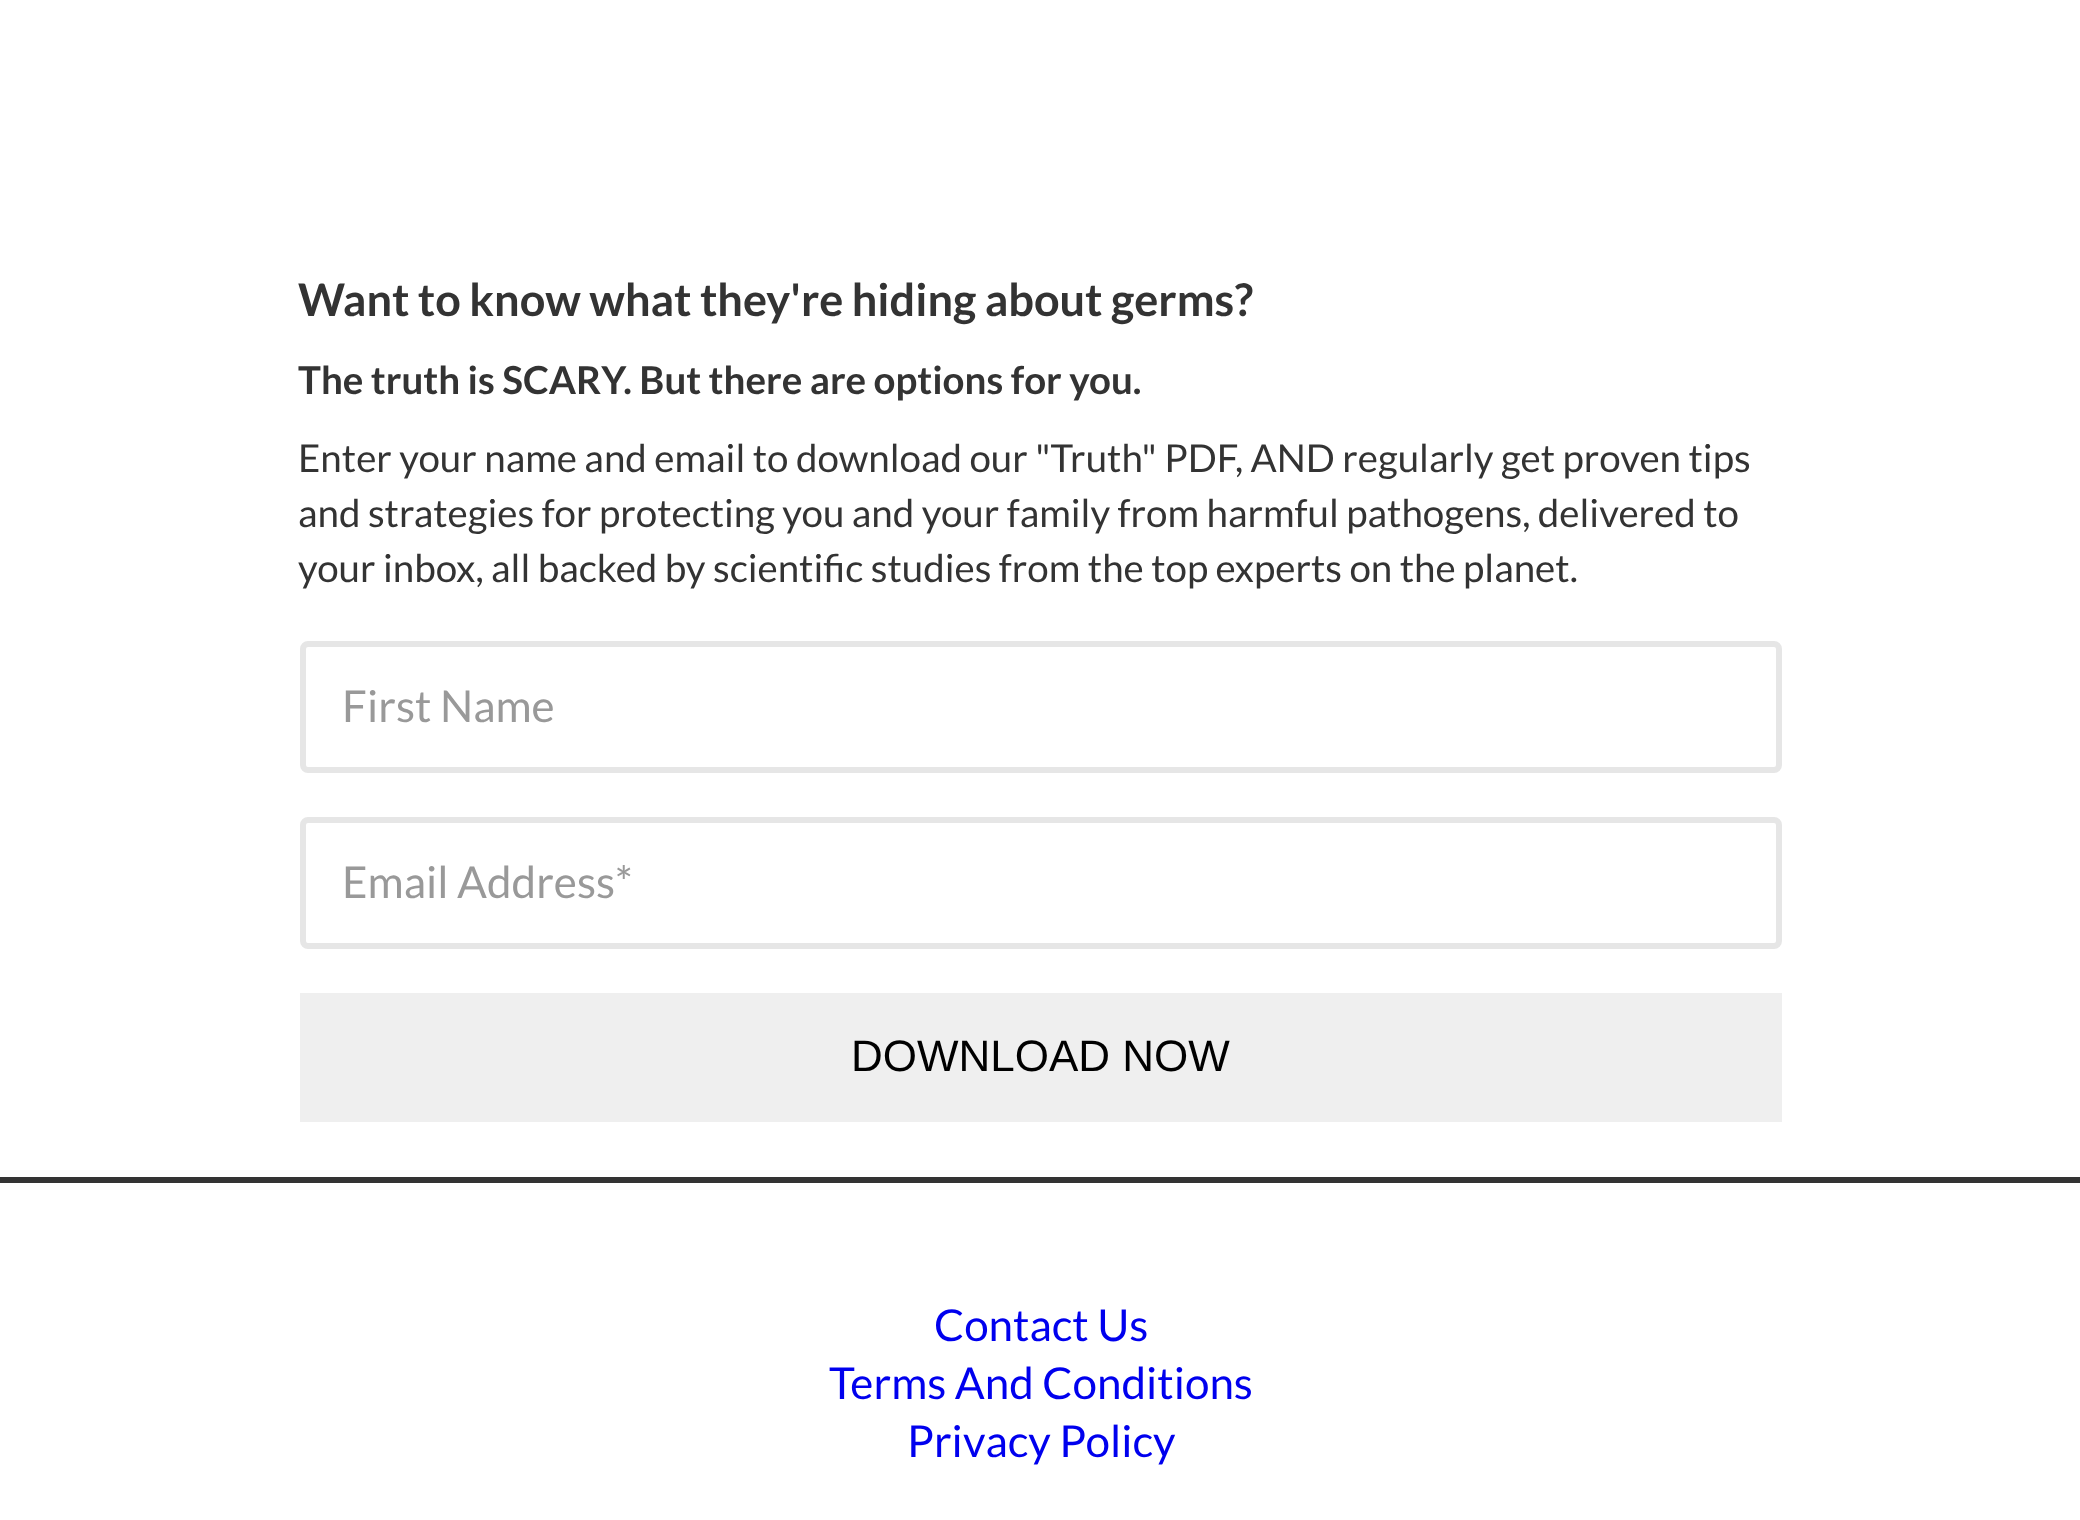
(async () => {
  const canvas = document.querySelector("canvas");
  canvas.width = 2080;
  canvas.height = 1520;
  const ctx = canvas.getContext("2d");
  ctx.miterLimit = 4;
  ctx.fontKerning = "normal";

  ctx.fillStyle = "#ffffff";
  ctx.fillRect(0, 0, 2080, 1520);
  ctx.beginPath();
  ctx.roundRect(303, 644, 1476, 126, 5);
  ctx.strokeStyle = "#e6e6e6";
  ctx.lineWidth = 6;
  ctx.stroke();
  ctx.beginPath();
  ctx.roundRect(303, 820, 1476, 126, 5);
  ctx.stroke();
  ctx.fillStyle = "#efefef";
  ctx.fillRect(300, 993, 1482, 129);
  ctx.fillStyle = "#333333";
  ctx.fillRect(0, 1177, 2080, 6);
  ctx.wordSpacing = "-0.25px";
  ctx.font = "bold 45px Lato";
  ctx.fillText("Want to know what they're hiding about germs?", 298, 316);
  ctx.wordSpacing = "0px";
  ctx.font = "bold 38.5px Lato";
  ctx.fillText("The truth is SCARY. But there are options for you.", 298, 394);
  ctx.font = "38.5px Lato";
  for (const [text, x, y] of [
    ["Enter your name and email to download our \"Truth\" PDF, AND regularly get proven tips", 298, 472],
    ["and strategies for protecting you and your family from harmful pathogens, delivered to", 298, 527],
    ["your inbox, all backed by scientific studies from the top experts on the planet.", 298, 582],
  ]) {
    ctx.fillText(text, x, y);
  }
  ctx.font = "44px Lato";
  ctx.fillStyle = "#999999";
  ctx.fillText("First Name", 342, 722);
  ctx.fillText("Email Address*", 342, 898);
  ctx.font = "44px Liberation Sans";
  ctx.fillStyle = "#000000";
  ctx.fillText("DOWNLOAD NOW", 851, 1071);
  ctx.font = "44px Lato";
  ctx.fillStyle = "#0000ee";
  for (const [text, x, y] of [
    ["Contact Us", 934, 1341],
    ["Terms And Conditions", 829, 1399],
    ["Privacy Policy", 907, 1457],
  ]) {
    ctx.fillText(text, x, y);
  }
})();
